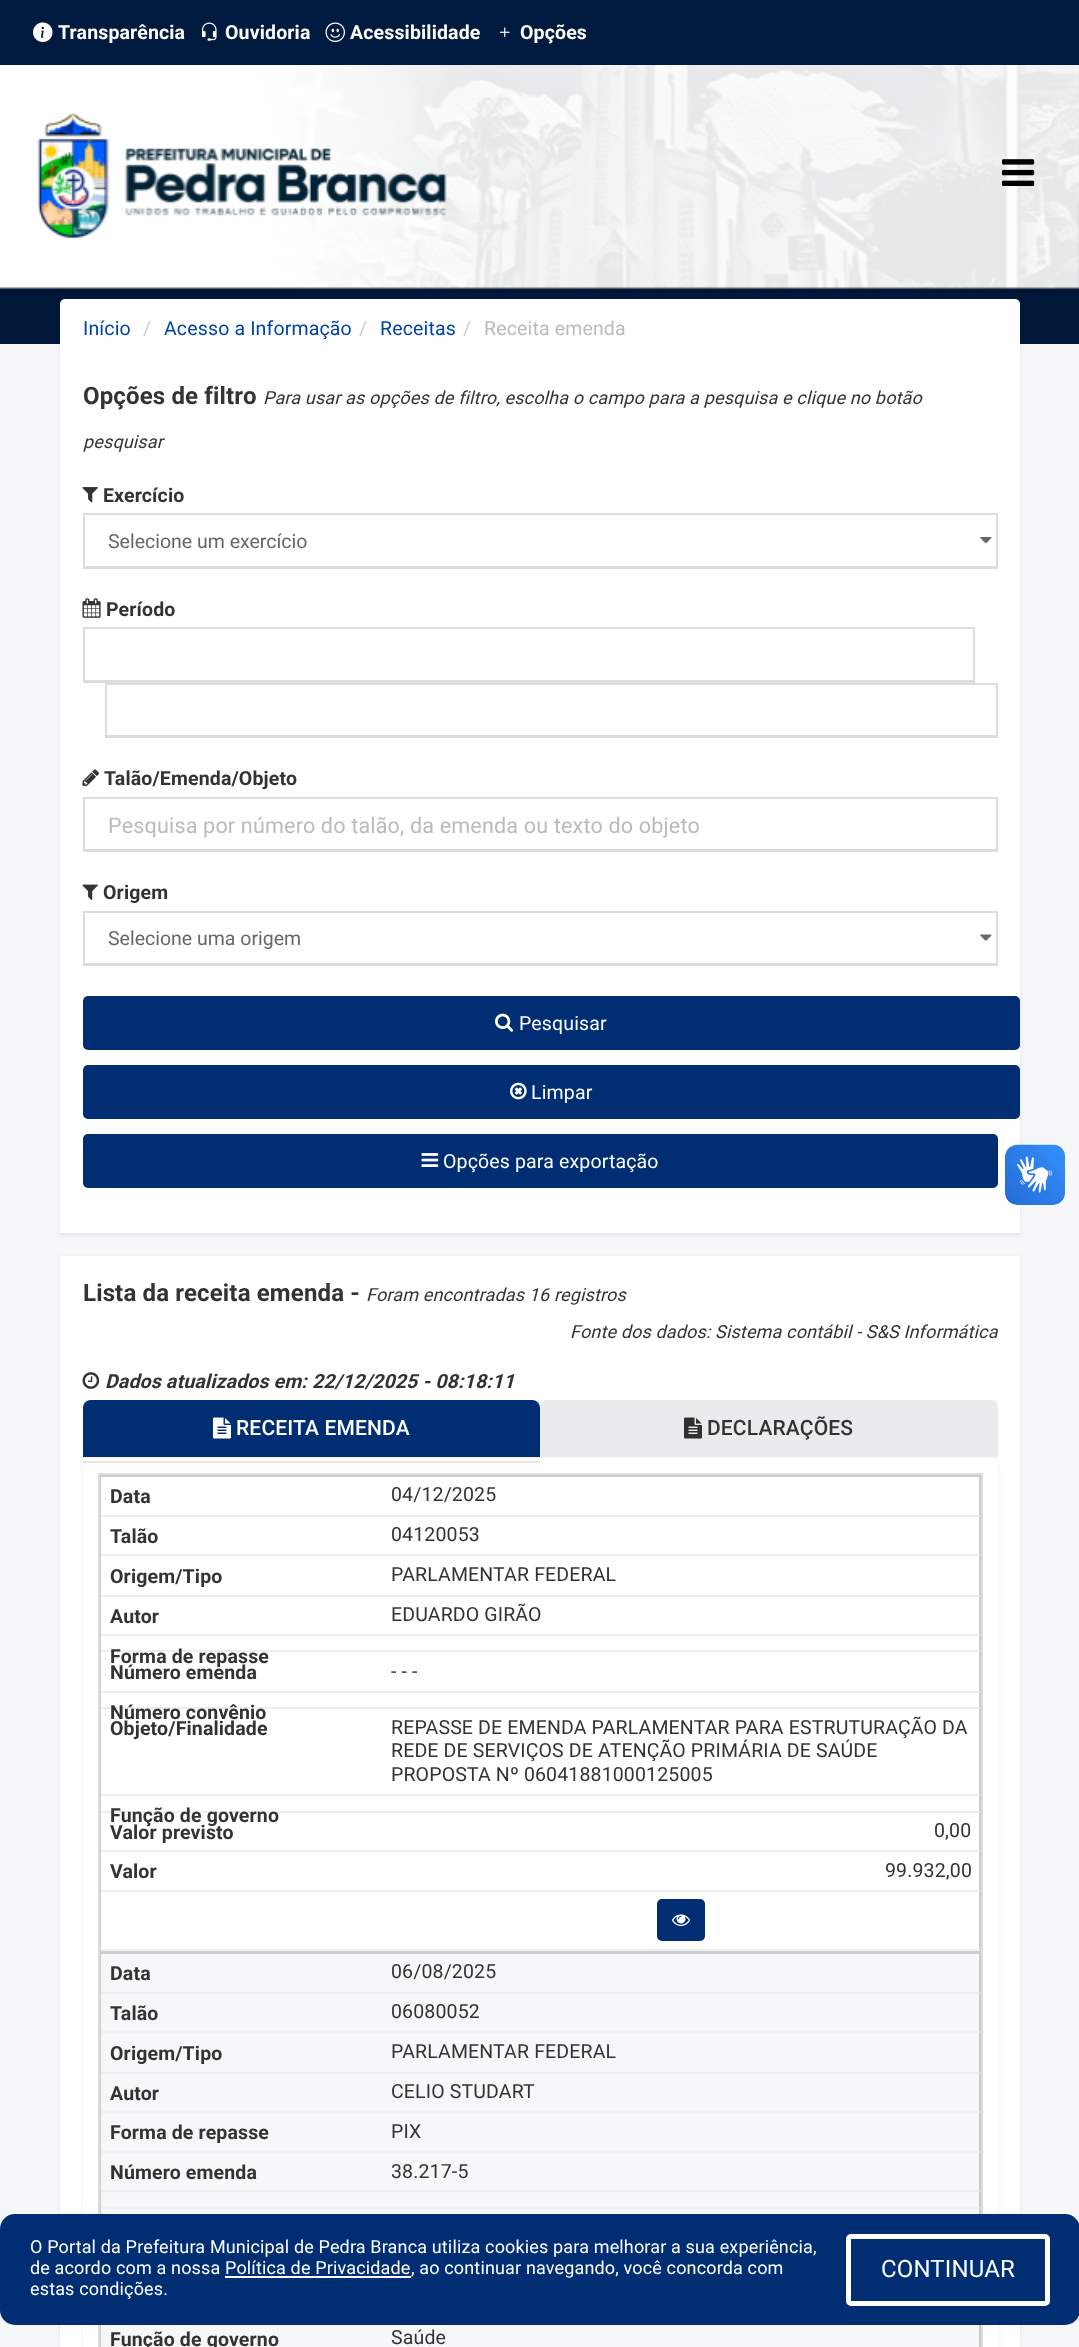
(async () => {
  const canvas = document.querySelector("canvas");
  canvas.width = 1079;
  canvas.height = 2347;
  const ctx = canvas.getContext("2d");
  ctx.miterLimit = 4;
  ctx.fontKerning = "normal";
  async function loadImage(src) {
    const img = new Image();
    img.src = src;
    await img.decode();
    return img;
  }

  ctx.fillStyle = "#f6f7f8";
  ctx.fillRect(0, 0, 1079, 2347);
  ctx.fillStyle = "rgba(3, 0, 71, 0.09)";
  ctx.filter = "blur(2px)";
  ctx.beginPath();
  ctx.rect(60, 300, 960, 935);
  ctx.fill();
  ctx.filter = "none";
  ctx.fillStyle = "#011739";
  ctx.fillRect(0, 201, 1079, 143);
  ctx.fillStyle = "rgba(0, 0, 0, 0.3)";
  ctx.filter = "blur(1.5px)";
  ctx.beginPath();
  ctx.rect(0, 2, 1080, 288);
  ctx.fill();
  ctx.filter = "none";
  ctx.drawImage(await loadImage("img/1.png"), 0, 65, 1079, 225);
  ctx.fillStyle = "#011a40";
  ctx.fillRect(0, 0, 1079, 65);
  ctx.drawImage(await loadImage("img/2.png"), 33, 22, 20, 20);
  ctx.drawImage(await loadImage("img/3.png"), 201, 22, 16, 19);
  ctx.drawImage(await loadImage("img/4.png"), 325, 22, 20, 20);
  ctx.drawImage(await loadImage("img/5.png"), 499, 27, 11, 11);
  ctx.drawImage(await loadImage("img/6.png"), 37, 113, 410, 126);
  ctx.drawImage(await loadImage("img/7.png"), 1002, 159, 33, 27);
  ctx.fillStyle = "#ffffff";
  ctx.fillRect(60, 354, 960, 879);
  ctx.beginPath();
  ctx.roundRect(60, 299, 960, 60, 5);
  ctx.fill();
  ctx.drawImage(await loadImage("img/8.png"), 82, 487, 16, 16);
  ctx.drawImage(await loadImage("img/9.png"), 980, 537, 12, 7);
  ctx.fillStyle = "#dddddd";
  ctx.fillRect(84, 566, 912, 1);
  ctx.strokeStyle = "#dddddd";
  ctx.lineWidth = 2;
  ctx.strokeRect(84, 514, 913, 54);
  ctx.drawImage(await loadImage("img/10.png"), 82, 598, 19, 20);
  ctx.fillRect(84, 680, 890, 1);
  ctx.strokeRect(84, 628, 890, 54);
  ctx.fillRect(107, 735, 889, 1);
  ctx.strokeRect(106, 684, 891, 53);
  ctx.drawImage(await loadImage("img/11.png"), 82, 769, 17, 17);
  ctx.fillRect(84, 849, 912, 1);
  ctx.strokeRect(84, 798, 913, 53);
  ctx.drawImage(await loadImage("img/12.png"), 82, 884, 16, 16);
  ctx.drawImage(await loadImage("img/13.png"), 980, 934, 12, 8);
  ctx.fillRect(84, 963, 912, 1);
  ctx.strokeRect(84, 912, 913, 53);
  ctx.fillStyle = "#012e72";
  ctx.beginPath();
  ctx.roundRect(83, 996, 937, 54, 5);
  ctx.fill();
  ctx.drawImage(await loadImage("img/14.png"), 495, 1013, 19, 19);
  ctx.beginPath();
  ctx.roundRect(83, 1065, 937, 54, 5);
  ctx.fill();
  ctx.drawImage(await loadImage("img/15.png"), 510, 1082, 17, 18);
  ctx.beginPath();
  ctx.roundRect(83, 1134, 915, 54, 5);
  ctx.fill();
  ctx.drawImage(await loadImage("img/16.png"), 421, 1153, 18, 14);
  ctx.drawImage(await loadImage("img/17.png"), 1005, 1144, 60, 61);
  ctx.drawImage(await loadImage("img/18.png"), 1005, 1145, 60, 60);
  ctx.fillStyle = "rgba(3, 0, 71, 0.09)";
  ctx.filter = "blur(2px)";
  ctx.beginPath();
  ctx.rect(60, 1257, 960, 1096);
  ctx.fill();
  ctx.filter = "none";
  ctx.fillStyle = "#ffffff";
  ctx.fillRect(60, 1256, 960, 1091);
  ctx.drawImage(await loadImage("img/19.png"), 82, 1372, 18, 17);
  ctx.fillStyle = "#f6f7f8";
  ctx.fillRect(83, 1400, 915, 58);
  ctx.fillStyle = "rgba(3, 0, 71, 0.09)";
  ctx.filter = "blur(2px)";
  ctx.beginPath();
  ctx.roundRect(83, 1460, 915, 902, 9);
  ctx.fill();
  ctx.filter = "none";
  ctx.fillStyle = "#ffffff";
  ctx.beginPath();
  ctx.roundRect(83, 1458, 915, 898, 9);
  ctx.fill();
  ctx.fillStyle = "#e6e6e6";
  ctx.fillRect(83, 1461, 457, 2);
  ctx.fillStyle = "#012e72";
  ctx.beginPath();
  ctx.roundRect(83, 1400, 457, 57, [8, 8, 0, 0]);
  ctx.fill();
  ctx.drawImage(await loadImage("img/20.png"), 213, 1417, 18, 22);
  ctx.fillStyle = "#eaebec";
  ctx.beginPath();
  ctx.roundRect(540, 1400, 458, 57, [8, 8, 0, 0]);
  ctx.fill();
  ctx.drawImage(await loadImage("img/21.png"), 684, 1417, 18, 22);
  ctx.fillStyle = "#dddddd";
  ctx.fillRect(98, 1473, 885, 2);
  ctx.fillRect(981, 1473, 2, 874);
  ctx.strokeStyle = "#cccccc";
  ctx.strokeRect(100, 1476, 880, 475);
  ctx.fillStyle = "#f6f7f8";
  ctx.beginPath();
  ctx.rect(100, 1953, 880, 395);
  ctx.fill();
  ctx.stroke();
  for (const [x, y, w, h, color] of [
    [98, 1473, 2, 874, "#dddddd"],
    [101, 1515, 879, 2, "#eeeeee"],
    [101, 1554, 879, 2, "#eeeeee"],
    [101, 1595, 879, 2, "#eeeeee"],
    [101, 1634, 879, 2, "#eeeeee"],
    [101, 1650, 879, 2, "#eeeeee"],
    [101, 1691, 879, 2, "#eeeeee"],
    [101, 1707, 879, 2, "#eeeeee"],
    [101, 1794, 879, 2, "#eeeeee"],
    [101, 1811, 879, 2, "#eeeeee"],
    [101, 1850, 879, 2, "#eeeeee"],
    [101, 1890, 879, 2, "#eeeeee"],
    [101, 1949, 879, 2, "#eeeeee"],
  ]) {
    ctx.fillStyle = color;
    ctx.fillRect(x, y, w, h);
  }
  ctx.fillStyle = "#012e72";
  ctx.beginPath();
  ctx.roundRect(657, 1899, 48, 42, 5);
  ctx.fill();
  ctx.drawImage(await loadImage("img/22.png"), 672, 1914, 18, 12);
  for (const [x, y, w, h, color] of [
    [101, 1992, 879, 2, "#eeeeee"],
    [101, 2031, 879, 2, "#eeeeee"],
    [101, 2072, 879, 2, "#eeeeee"],
    [101, 2111, 879, 2, "#eeeeee"],
    [101, 2151, 879, 2, "#eeeeee"],
    [101, 2190, 879, 2, "#eeeeee"],
    [101, 2207, 879, 2, "#eeeeee"],
  ]) {
    ctx.fillStyle = color;
    ctx.fillRect(x, y, w, h);
  }
  ctx.fillStyle = "#012e72";
  ctx.beginPath();
  ctx.roundRect(0, 2214, 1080, 111, 15);
  ctx.fill();
  ctx.fillStyle = "#ffffff";
  ctx.fillRect(225, 2276, 186, 2);
  ctx.beginPath();
  ctx.roundRect(848.5, 2236.5, 199, 67, 2.5);
  ctx.strokeStyle = "#ffffff";
  ctx.lineWidth = 5;
  ctx.stroke();
  ctx.letterSpacing = "0.15px";
  ctx.font = "bold 19.5px Roboto";
  for (const [text, x, y] of [
    ["Transparência", 58, 39],
    ["Ouvidoria", 225, 39],
    ["Acessibilidade", 350, 39],
    ["Opções", 520, 39],
  ]) {
    ctx.fillText(text, x, y);
  }
  ctx.font = "19.5px Roboto";
  ctx.fillStyle = "#0143a5";
  ctx.fillText("Início", 83, 335);
  ctx.fillStyle = "#cccccc";
  ctx.fillText("/", 143, 335);
  ctx.fillStyle = "#0143a5";
  ctx.fillText("Acesso a Informação", 164, 335);
  ctx.fillStyle = "#cccccc";
  ctx.fillText("/", 359, 335);
  ctx.fillStyle = "#0143a5";
  ctx.fillText("Receitas", 380, 335);
  ctx.fillStyle = "#cccccc";
  ctx.fillText("/", 463, 335);
  ctx.fillStyle = "#bbbbbb";
  ctx.fillText("Receita emenda", 484, 335);
  ctx.font = "bold 24px Roboto";
  ctx.fillStyle = "#333333";
  ctx.fillText("Opções de filtro", 83, 404);
  ctx.font = "italic 18px Roboto";
  ctx.fillText("Para usar as opções de filtro, escolha o campo para a pesquisa e clique no botão", 263, 404);
  ctx.fillText("pesquisar", 83, 448);
  ctx.font = "bold 19.5px Roboto";
  ctx.fillText("Exercício", 103, 502);
  ctx.letterSpacing = "0px";
  ctx.font = "19.5px Roboto";
  ctx.fillStyle = "#666666";
  ctx.fillText("Selecione um exercício", 108, 548);
  ctx.letterSpacing = "0.15px";
  ctx.font = "bold 19.5px Roboto";
  ctx.fillStyle = "#333333";
  ctx.fillText("Período", 106, 616);
  ctx.fillText("Talão/Emenda/Objeto", 104, 785);
  ctx.font = "21.6px Roboto";
  ctx.fillStyle = "#bbbbbb";
  ctx.fillText("Pesquisa por número do talão, da emenda ou texto do objeto", 108, 833);
  ctx.font = "bold 19.5px Roboto";
  ctx.fillStyle = "#333333";
  ctx.fillText("Origem", 103, 899);
  ctx.letterSpacing = "0px";
  ctx.font = "19.5px Roboto";
  ctx.fillStyle = "#666666";
  ctx.fillText("Selecione uma origem", 108, 945);
  ctx.letterSpacing = "0.15px";
  ctx.fillStyle = "#ffffff";
  for (const [text, x, y] of [
    ["Pesquisar", 519, 1030],
    ["Limpar", 531, 1099],
    ["Opções para exportação", 443, 1168],
  ]) {
    ctx.fillText(text, x, y);
  }
  ctx.font = "bold 24px Roboto";
  ctx.fillStyle = "#333333";
  ctx.fillText("Lista da receita emenda -", 83, 1301);
  ctx.font = "italic 18px Roboto";
  ctx.fillText("Foram encontradas 16 registros", 366, 1301);
  ctx.fillText("Fonte dos dados: Sistema contábil - S&S Informática", 570, 1338);
  ctx.font = "italic bold 19.5px Roboto";
  ctx.fillText("Dados atualizados em: 22/12/2025 - 08:18:11", 105, 1388);
  ctx.font = "500 21px Roboto";
  ctx.fillStyle = "#ffffff";
  ctx.fillText("RECEITA EMENDA", 236, 1435);
  ctx.fillStyle = "#333333";
  ctx.fillText("DECLARAÇÕES", 707, 1435);
  ctx.font = "bold 19.5px Roboto";
  ctx.fillText("Data", 110, 1503);
  ctx.font = "19.5px Roboto";
  ctx.fillText("04/12/2025", 391, 1501);
  ctx.font = "bold 19.5px Roboto";
  ctx.fillText("Talão", 110, 1543);
  ctx.font = "19.5px Roboto";
  ctx.fillText("04120053", 391, 1541);
  ctx.font = "bold 19.5px Roboto";
  ctx.fillText("Origem/Tipo", 110, 1583);
  ctx.font = "19.5px Roboto";
  ctx.fillText("PARLAMENTAR FEDERAL", 391, 1581);
  ctx.font = "bold 19.5px Roboto";
  ctx.fillText("Autor", 110, 1623);
  ctx.font = "19.5px Roboto";
  ctx.fillText("EDUARDO GIRÃO", 391, 1621);
  ctx.font = "bold 19.5px Roboto";
  ctx.fillText("Forma de repasse", 110, 1663);
  ctx.fillText("Número emenda", 110, 1679);
  ctx.font = "19.5px Roboto";
  ctx.fillText("- - -", 391, 1678);
  ctx.font = "bold 19.5px Roboto";
  ctx.fillText("Número convênio", 110, 1719);
  ctx.fillText("Objeto/Finalidade", 110, 1735);
  ctx.font = "19.5px Roboto";
  for (const [text, x, y] of [
    ["REPASSE DE EMENDA PARLAMENTAR PARA ESTRUTURAÇÃO DA", 391, 1734],
    ["REDE DE SERVIÇOS DE ATENÇÃO PRIMÁRIA DE SAÚDE", 391, 1757],
    ["PROPOSTA Nº 06041881000125005", 391, 1781],
  ]) {
    ctx.fillText(text, x, y);
  }
  ctx.font = "bold 19.5px Roboto";
  ctx.fillText("Função de governo", 110, 1822);
  ctx.fillText("Valor previsto", 110, 1839);
  ctx.font = "19.5px Roboto";
  ctx.fillText("0,00", 934, 1837);
  ctx.font = "bold 19.5px Roboto";
  ctx.fillText("Valor", 110, 1878);
  ctx.font = "19.5px Roboto";
  ctx.fillText("99.932,00", 885, 1877);
  ctx.font = "bold 19.5px Roboto";
  ctx.fillText("Data", 110, 1980);
  ctx.font = "19.5px Roboto";
  ctx.fillText("06/08/2025", 391, 1978);
  ctx.font = "bold 19.5px Roboto";
  ctx.fillText("Talão", 110, 2020);
  ctx.font = "19.5px Roboto";
  ctx.fillText("06080052", 391, 2018);
  ctx.font = "bold 19.5px Roboto";
  ctx.fillText("Origem/Tipo", 110, 2060);
  ctx.font = "19.5px Roboto";
  ctx.fillText("PARLAMENTAR FEDERAL", 391, 2058);
  ctx.font = "bold 19.5px Roboto";
  ctx.fillText("Autor", 110, 2100);
  ctx.font = "19.5px Roboto";
  ctx.fillText("CELIO STUDART", 391, 2098);
  ctx.font = "bold 19.5px Roboto";
  ctx.fillText("Forma de repasse", 110, 2139);
  ctx.font = "19.5px Roboto";
  ctx.fillText("PIX", 391, 2138);
  ctx.font = "bold 19.5px Roboto";
  ctx.fillText("Número emenda", 110, 2179);
  ctx.font = "19.5px Roboto";
  ctx.fillText("38.217-5", 391, 2178);
  ctx.font = "bold 19.5px Roboto";
  ctx.fillText("Função de governo", 110, 2346);
  ctx.font = "19.5px Roboto";
  ctx.fillText("Saúde", 391, 2344);
  ctx.font = "18px Roboto";
  ctx.fillStyle = "#ffffff";
  for (const [text, x, y] of [
    ["O Portal da Prefeitura Municipal de Pedra Branca utiliza cookies para melhorar a sua experiência,", 30, 2253],
    ["de acordo com a nossa Política de Privacidade", 30, 2274],
    [", ao continuar navegando, você concorda com", 411, 2274],
    ["estas condições.", 30, 2295],
  ]) {
    ctx.fillText(text, x, y);
  }
  ctx.font = "24px Roboto";
  ctx.fillText("CONTINUAR", 881, 2277);
})();
